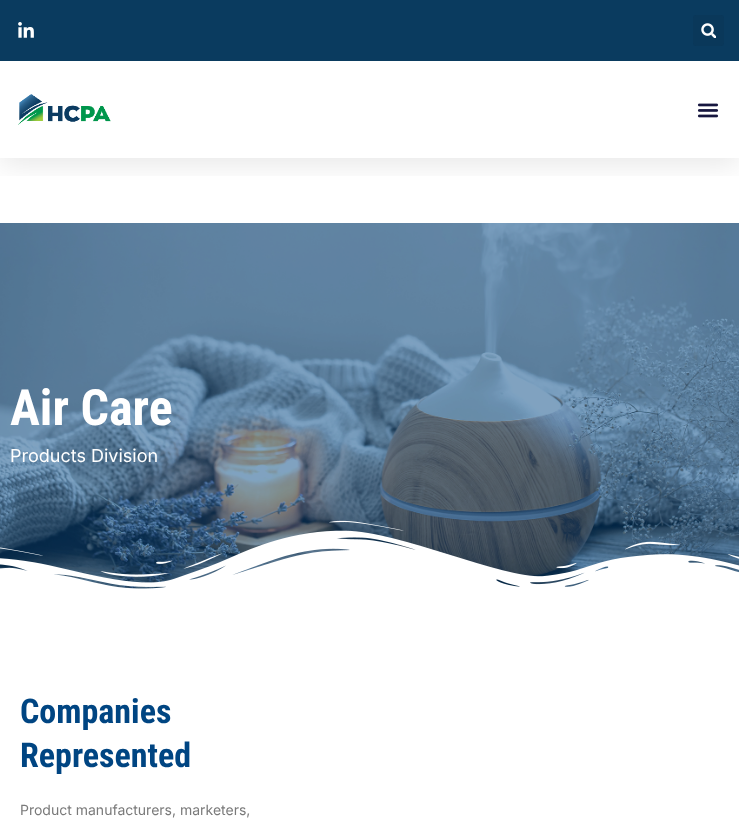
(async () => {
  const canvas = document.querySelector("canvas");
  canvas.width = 739;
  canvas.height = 837;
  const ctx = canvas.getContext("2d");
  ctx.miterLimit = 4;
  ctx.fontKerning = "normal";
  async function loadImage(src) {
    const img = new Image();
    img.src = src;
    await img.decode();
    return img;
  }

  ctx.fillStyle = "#ffffff";
  ctx.fillRect(0, 0, 739, 837);
  ctx.save();
  ctx.beginPath();
  ctx.rect(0, 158, 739, 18);
  ctx.clip();
  ctx.fillStyle = "rgba(0, 0, 0, 0.1)";
  ctx.filter = "blur(15px)";
  ctx.beginPath();
  ctx.rect(0, 5, 739, 158);
  ctx.fill();
  ctx.filter = "none";
  ctx.restore();
  ctx.fillStyle = "#0a3b5f";
  ctx.fillRect(0, 0, 739, 61);
  ctx.drawImage(await loadImage("img/1.png"), 18, 22, 16, 16);
  ctx.fillStyle = "#0a385a";
  ctx.beginPath();
  ctx.roundRect(693, 15, 31, 31, 3);
  ctx.fill();
  ctx.drawImage(await loadImage("img/2.png"), 701, 23, 15, 15);
  ctx.drawImage(await loadImage("img/3.png"), 18, 94, 93, 31);
  ctx.drawImage(await loadImage("img/4.png"), 697, 103, 22, 15);
  ctx.drawImage(await loadImage("img/5.png"), 0, 223, 739, 366);
  ctx.drawImage(await loadImage("img/6.png"), 0, 520, 739, 79);
  ctx.font = "bold 50px Roboto Condensed";
  ctx.fillStyle = "#ffffff";
  ctx.fillText("Air Care", 10, 425);
  ctx.font = "18px Inter";
  ctx.fillText("Products Division", 10, 462);
  ctx.font = "bold 34px Roboto Condensed";
  ctx.fillStyle = "#004582";
  ctx.fillText("Companies", 20, 723);
  ctx.fillText("Represented", 20, 767);
  ctx.font = "14px Inter";
  ctx.fillStyle = "#7a7a7a";
  ctx.fillText("Product manufacturers, marketers,", 20, 815);
})();
